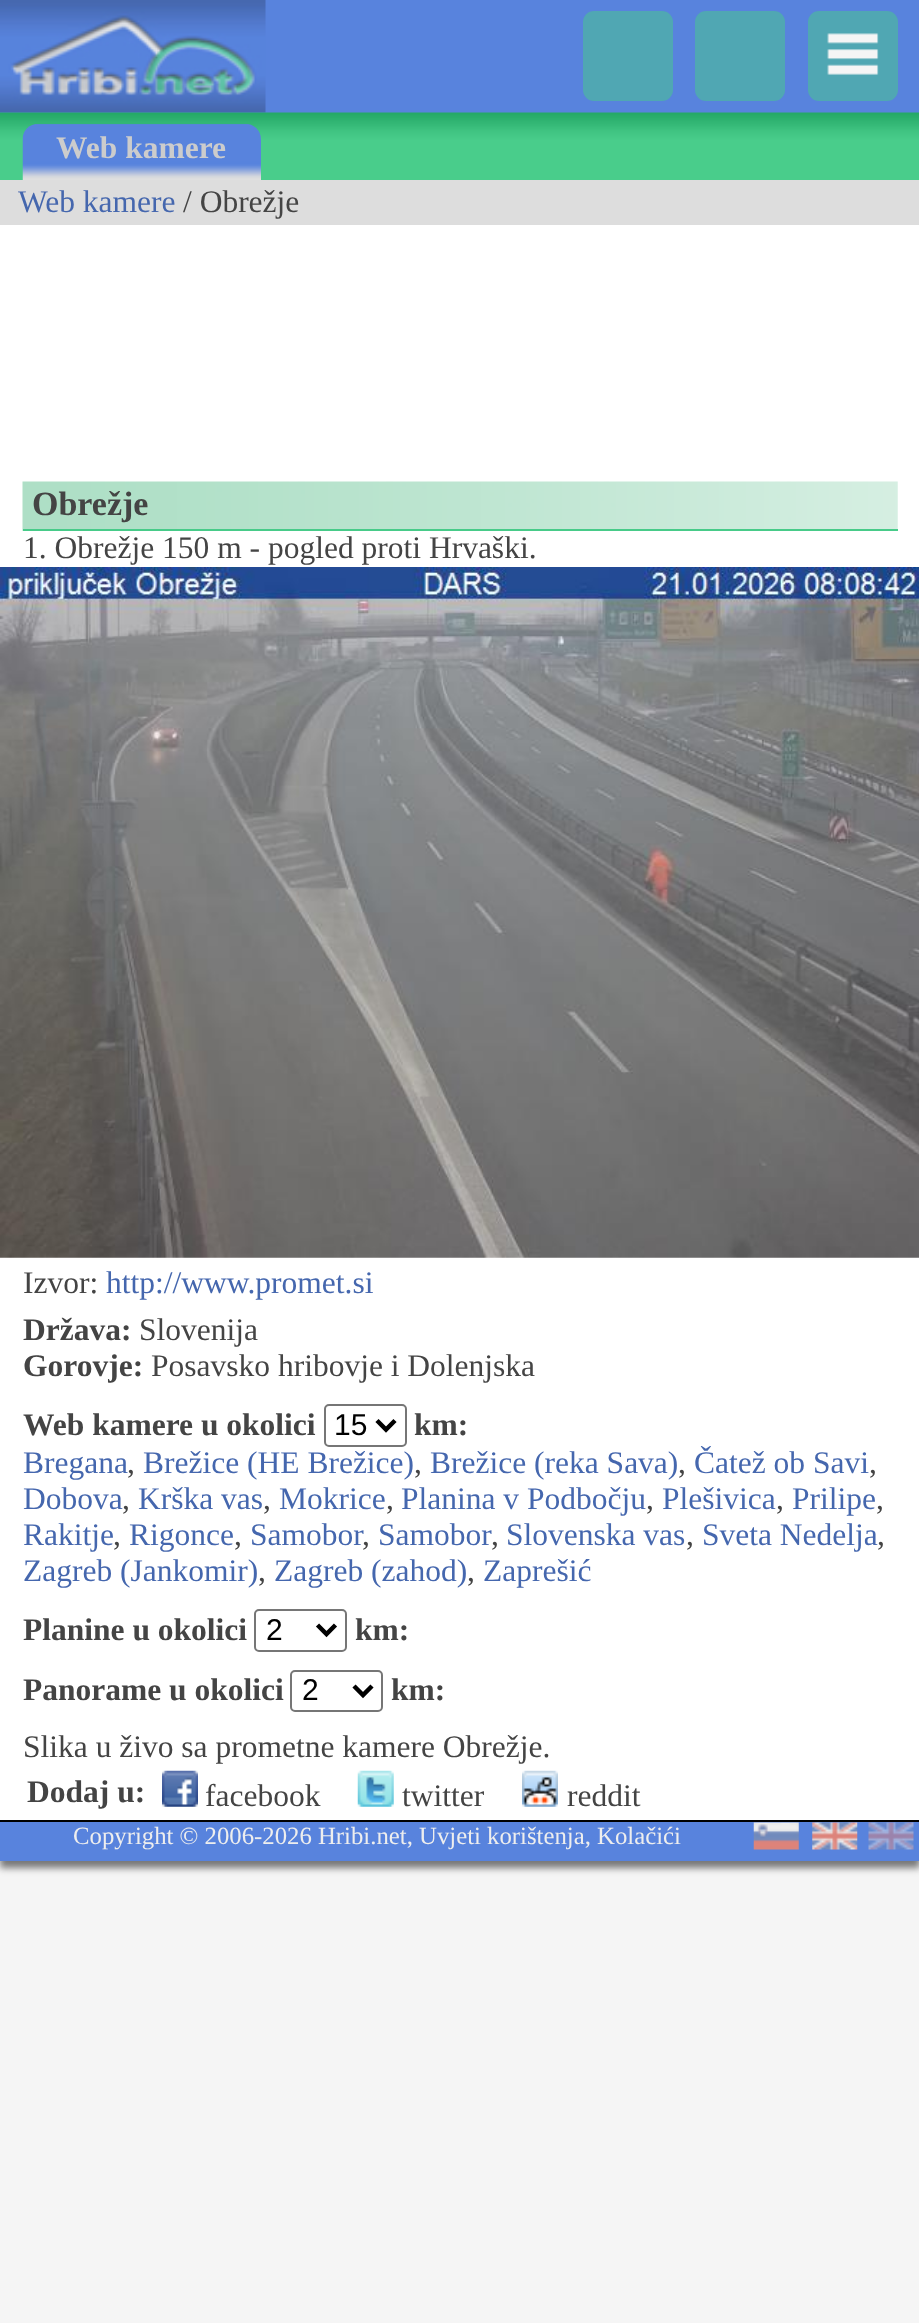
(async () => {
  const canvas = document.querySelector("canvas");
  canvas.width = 919;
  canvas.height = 2323;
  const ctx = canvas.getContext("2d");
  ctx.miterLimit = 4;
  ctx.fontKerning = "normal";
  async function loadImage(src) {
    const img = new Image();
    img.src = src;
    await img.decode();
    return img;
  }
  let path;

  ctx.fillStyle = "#f5f5f5";
  ctx.fillRect(0, 0, 919, 2323);
  ctx.fillStyle = "#5883dd";
  ctx.fillRect(0, 0, 919, 113);
  ctx.drawImage(await loadImage("img/1.png"), 0, 0, 266, 113);
  ctx.fillStyle = "#50a7b3";
  ctx.beginPath();
  ctx.roundRect(583, 11, 90, 90, 11);
  ctx.fill();
  ctx.beginPath();
  ctx.roundRect(695, 11, 90, 90, 11);
  ctx.fill();
  ctx.beginPath();
  ctx.roundRect(808, 11, 90, 90, 11);
  ctx.fill();
  ctx.drawImage(await loadImage("img/2.png"), 827, 33, 52, 42);
  ctx.fillStyle = "#777777";
  ctx.filter = "blur(3.5px)";
  ctx.beginPath();
  ctx.rect(0, 187, 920, 1681);
  ctx.fill();
  ctx.filter = "none";
  ctx.drawImage(await loadImage("img/3.png"), 0, 112, 919, 68);
  ctx.drawImage(await loadImage("img/4.png"), 22, 123, 239, 57);
  ctx.fillStyle = "#ffffff";
  ctx.fillRect(0, 225, 919, 1595);
  ctx.fillStyle = "#dddddd";
  ctx.fillRect(0, 180, 919, 45);
  ctx.drawImage(await loadImage("img/5.png"), 22, 481, 876, 50);
  ctx.fillStyle = "#47cb89";
  ctx.fillRect(23, 529, 875, 2);
  ctx.drawImage(await loadImage("img/6.png"), 0, 567, 919, 691);
  ctx.beginPath();
  ctx.roundRect(325, 1405, 81, 41, 4);
  ctx.strokeStyle = "#767676";
  ctx.lineWidth = 2;
  ctx.stroke();
  path = new Path2D("M377 1420.5L386 1429.5L395 1420.5");
  ctx.strokeStyle = "#000000";
  ctx.lineWidth = 4.5;
  ctx.stroke(path);
  ctx.beginPath();
  ctx.roundRect(255, 1610, 91, 41, 4);
  ctx.strokeStyle = "#767676";
  ctx.lineWidth = 2;
  ctx.stroke();
  path = new Path2D("M317.5 1625L326.5 1634L335.5 1625");
  ctx.strokeStyle = "#000000";
  ctx.lineWidth = 4.5;
  ctx.stroke(path);
  ctx.beginPath();
  ctx.roundRect(291, 1671, 91, 40, 4);
  ctx.strokeStyle = "#767676";
  ctx.lineWidth = 2;
  ctx.stroke();
  path = new Path2D("M354 1686L363 1695L372 1686");
  ctx.strokeStyle = "#000000";
  ctx.lineWidth = 4.5;
  ctx.stroke(path);
  ctx.drawImage(await loadImage("img/7.png"), 162, 1770, 36, 37);
  ctx.drawImage(await loadImage("img/8.png"), 357, 1770, 37, 37);
  ctx.drawImage(await loadImage("img/9.png"), 522, 1770, 36, 37);
  ctx.fillStyle = "#5883dd";
  ctx.fillRect(0, 1822, 919, 39);
  ctx.fillStyle = "#000000";
  ctx.fillRect(0, 1820, 919, 2);
  ctx.drawImage(await loadImage("img/10.png"), 753, 1822, 46, 28);
  ctx.drawImage(await loadImage("img/11.png"), 812, 1822, 46, 28);
  ctx.drawImage(await loadImage("img/12.png"), 868, 1822, 46, 28);
  ctx.font = "bold 31.5px Liberation Serif";
  ctx.fillStyle = "#cccccc";
  ctx.fillText("Web kamere", 56, 158);
  ctx.font = "31.5px Liberation Serif";
  ctx.fillStyle = "#4567ae";
  ctx.fillText("Web kamere", 18, 212);
  ctx.fillStyle = "#444444";
  ctx.fillText("/ Obrežje", 183, 212);
  ctx.font = "bold 34px Liberation Serif";
  ctx.fillText("Obrežje", 32, 515);
  ctx.font = "31.5px Liberation Serif";
  ctx.fillText("1. Obrežje 150 m - pogled proti Hrvaški.", 23, 558);
  ctx.fillText("Izvor:", 23, 1293);
  ctx.fillStyle = "#4567ae";
  ctx.fillText("http://www.promet.si", 106, 1293);
  ctx.font = "bold 31.5px Liberation Serif";
  ctx.fillStyle = "#444444";
  ctx.fillText("Država:", 23, 1340);
  ctx.font = "31.5px Liberation Serif";
  ctx.fillText("Slovenija", 139, 1340);
  ctx.font = "bold 31.5px Liberation Serif";
  ctx.fillText("Gorovje:", 23, 1376);
  ctx.font = "31.5px Liberation Serif";
  ctx.fillText("Posavsko hribovje i Dolenjska", 151, 1376);
  ctx.font = "bold 31.5px Liberation Serif";
  ctx.fillText("Web kamere u okolici", 23, 1435);
  ctx.font = "30px Liberation Sans";
  ctx.fillStyle = "#000000";
  ctx.fillText("15", 334, 1435);
  ctx.font = "bold 31.5px Liberation Serif";
  ctx.fillStyle = "#444444";
  ctx.fillText("km:", 414, 1435);
  ctx.font = "31.5px Liberation Serif";
  ctx.fillStyle = "#4567ae";
  ctx.fillText("Bregana", 23, 1473);
  ctx.fillStyle = "#444444";
  ctx.fillText(",", 127, 1473);
  ctx.fillStyle = "#4567ae";
  ctx.fillText("Brežice (HE Brežice)", 143, 1473);
  ctx.fillStyle = "#444444";
  ctx.fillText(",", 414, 1473);
  ctx.fillStyle = "#4567ae";
  ctx.fillText("Brežice (reka Sava)", 430, 1473);
  ctx.fillStyle = "#444444";
  ctx.fillText(",", 678, 1473);
  ctx.fillStyle = "#4567ae";
  ctx.fillText("Čatež ob Savi", 694, 1473);
  ctx.fillStyle = "#444444";
  ctx.fillText(",", 869, 1473);
  ctx.fillStyle = "#4567ae";
  ctx.fillText("Dobova", 23, 1509);
  ctx.fillStyle = "#444444";
  ctx.fillText(",", 122, 1509);
  ctx.fillStyle = "#4567ae";
  ctx.fillText("Krška vas", 138, 1509);
  ctx.fillStyle = "#444444";
  ctx.fillText(",", 263, 1509);
  ctx.fillStyle = "#4567ae";
  ctx.fillText("Mokrice", 279, 1509);
  ctx.fillStyle = "#444444";
  ctx.fillText(",", 386, 1509);
  ctx.fillStyle = "#4567ae";
  ctx.fillText("Planina v Podbočju", 401, 1509);
  ctx.fillStyle = "#444444";
  ctx.fillText(",", 646, 1509);
  ctx.fillStyle = "#4567ae";
  ctx.fillText("Plešivica", 662, 1509);
  ctx.fillStyle = "#444444";
  ctx.fillText(",", 776, 1509);
  ctx.fillStyle = "#4567ae";
  ctx.fillText("Prilipe", 792, 1509);
  ctx.fillStyle = "#444444";
  ctx.fillText(",", 876, 1509);
  ctx.fillStyle = "#4567ae";
  ctx.fillText("Rakitje", 23, 1545);
  ctx.fillStyle = "#444444";
  ctx.fillText(",", 113, 1545);
  ctx.fillStyle = "#4567ae";
  ctx.fillText("Rigonce", 129, 1545);
  ctx.fillStyle = "#444444";
  ctx.fillText(",", 234, 1545);
  ctx.fillStyle = "#4567ae";
  ctx.fillText("Samobor", 250, 1545);
  ctx.fillStyle = "#444444";
  ctx.fillText(",", 362, 1545);
  ctx.fillStyle = "#4567ae";
  ctx.fillText("Samobor", 378, 1545);
  ctx.fillStyle = "#444444";
  ctx.fillText(",", 491, 1545);
  ctx.fillStyle = "#4567ae";
  ctx.fillText("Slovenska vas", 506, 1545);
  ctx.fillStyle = "#444444";
  ctx.fillText(",", 686, 1545);
  ctx.fillStyle = "#4567ae";
  ctx.fillText("Sveta Nedelja", 702, 1545);
  ctx.fillStyle = "#444444";
  ctx.fillText(",", 877, 1545);
  ctx.fillStyle = "#4567ae";
  ctx.fillText("Zagreb (Jankomir)", 23, 1581);
  ctx.fillStyle = "#444444";
  ctx.fillText(",", 258, 1581);
  ctx.fillStyle = "#4567ae";
  ctx.fillText("Zagreb (zahod)", 274, 1581);
  ctx.fillStyle = "#444444";
  ctx.fillText(",", 467, 1581);
  ctx.fillStyle = "#4567ae";
  ctx.fillText("Zaprešić", 483, 1581);
  ctx.font = "bold 31.5px Liberation Serif";
  ctx.fillStyle = "#444444";
  ctx.fillText("Planine u okolici", 23, 1640);
  ctx.font = "30px Liberation Sans";
  ctx.fillStyle = "#000000";
  ctx.fillText("2", 266, 1640);
  ctx.font = "bold 31.5px Liberation Serif";
  ctx.fillStyle = "#444444";
  ctx.fillText("km:", 355, 1640);
  ctx.fillText("Panorame u okolici", 23, 1700);
  ctx.font = "30px Liberation Sans";
  ctx.fillStyle = "#000000";
  ctx.fillText("2", 302, 1700);
  ctx.font = "bold 31.5px Liberation Serif";
  ctx.fillStyle = "#444444";
  ctx.fillText("km:", 391, 1700);
  ctx.font = "31.5px Liberation Serif";
  ctx.fillText("Slika u živo sa prometne kamere Obrežje.", 23, 1757);
  ctx.font = "bold 31.5px Liberation Serif";
  ctx.fillText("Dodaj u:", 27, 1802);
  ctx.font = "31.5px Liberation Serif";
  for (const [text, x, y] of [
    ["facebook", 205, 1806],
    ["twitter", 402, 1806],
    ["reddit", 567, 1806],
  ]) {
    ctx.fillText(text, x, y);
  }
  ctx.font = "24.75px Liberation Serif";
  ctx.fillStyle = "#eeeeee";
  ctx.fillText("Copyright © 2006-2026 Hribi.net, Uvjeti korištenja, Kolačići", 73, 1844);
})();
